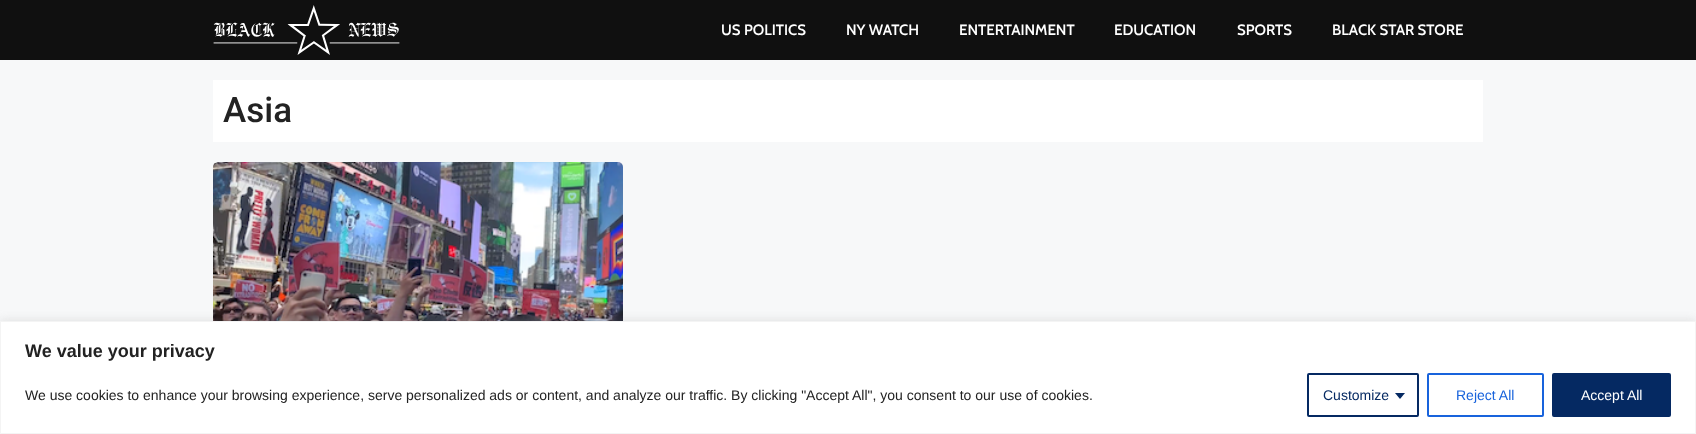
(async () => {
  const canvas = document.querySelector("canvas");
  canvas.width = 1696;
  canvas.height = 434;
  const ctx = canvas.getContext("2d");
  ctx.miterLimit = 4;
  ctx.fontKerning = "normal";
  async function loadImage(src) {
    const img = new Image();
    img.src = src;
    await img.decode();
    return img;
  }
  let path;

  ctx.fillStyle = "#f7f8f9";
  ctx.fillRect(0, 0, 1696, 434);
  ctx.fillStyle = "#101010";
  ctx.fillRect(0, 0, 1696, 60);
  ctx.drawImage(await loadImage("img/1.png"), 213, 5, 187, 50);
  ctx.fillStyle = "#ffffff";
  ctx.fillRect(213, 80, 1270, 62);
  ctx.drawImage(await loadImage("img/2.png"), 213, 162, 410, 159);
  ctx.fillStyle = "rgba(172, 171, 171, 0.3)";
  ctx.filter = "blur(5px)";
  ctx.beginPath();
  ctx.rect(0, 320, 1696, 113);
  ctx.fill();
  ctx.filter = "none";
  ctx.fillStyle = "#ffffff";
  ctx.beginPath();
  ctx.rect(0.5, 321.5, 1695, 112);
  ctx.fill();
  ctx.strokeStyle = "#f4f4f4";
  ctx.stroke();
  ctx.beginPath();
  ctx.roundRect(1308, 374, 110, 42, 1);
  ctx.strokeStyle = "#052962";
  ctx.lineWidth = 2;
  ctx.stroke();
  ctx.fillStyle = "#052962";
  path = new Path2D("M1395 393H1405L1400 399Z");
  ctx.fill(path);
  ctx.beginPath();
  ctx.roundRect(1428, 374, 115, 42, 1);
  ctx.strokeStyle = "#1863dc";
  ctx.stroke();
  ctx.beginPath();
  ctx.roundRect(1553, 374, 117, 42, 1);
  ctx.fill();
  ctx.strokeStyle = "#052962";
  ctx.stroke();
  ctx.font = "600 15px Cabin";
  ctx.fillStyle = "#ffffff";
  for (const [text, x, y] of [
    ["US POLITICS", 721, 35],
    ["NY WATCH", 846, 35],
    ["ENTERTAINMENT", 959, 35],
    ["EDUCATION", 1114, 35],
    ["SPORTS", 1237, 35],
    ["BLACK STAR STORE", 1332, 35],
  ]) {
    ctx.fillText(text, x, y);
  }
  ctx.font = "500 35px Roboto";
  ctx.fillStyle = "#222222";
  ctx.fillText("Asia", 223, 122);
  ctx.font = "bold 18px Liberation Sans";
  ctx.fillText("We value your privacy", 25, 357);
  ctx.font = "14px Liberation Sans";
  ctx.fillText("We use cookies to enhance your browsing experience, serve personalized ads or content, and analyze our traffic. By clicking \"Accept All\", you consent to our use of cookies.", 25, 400);
  ctx.fillStyle = "#052962";
  ctx.fillText("Customize", 1323, 400);
  ctx.fillStyle = "#1863dc";
  ctx.fillText("Reject All", 1456, 400);
  ctx.fillStyle = "#ffffff";
  ctx.fillText("Accept All", 1581, 400);
})();
